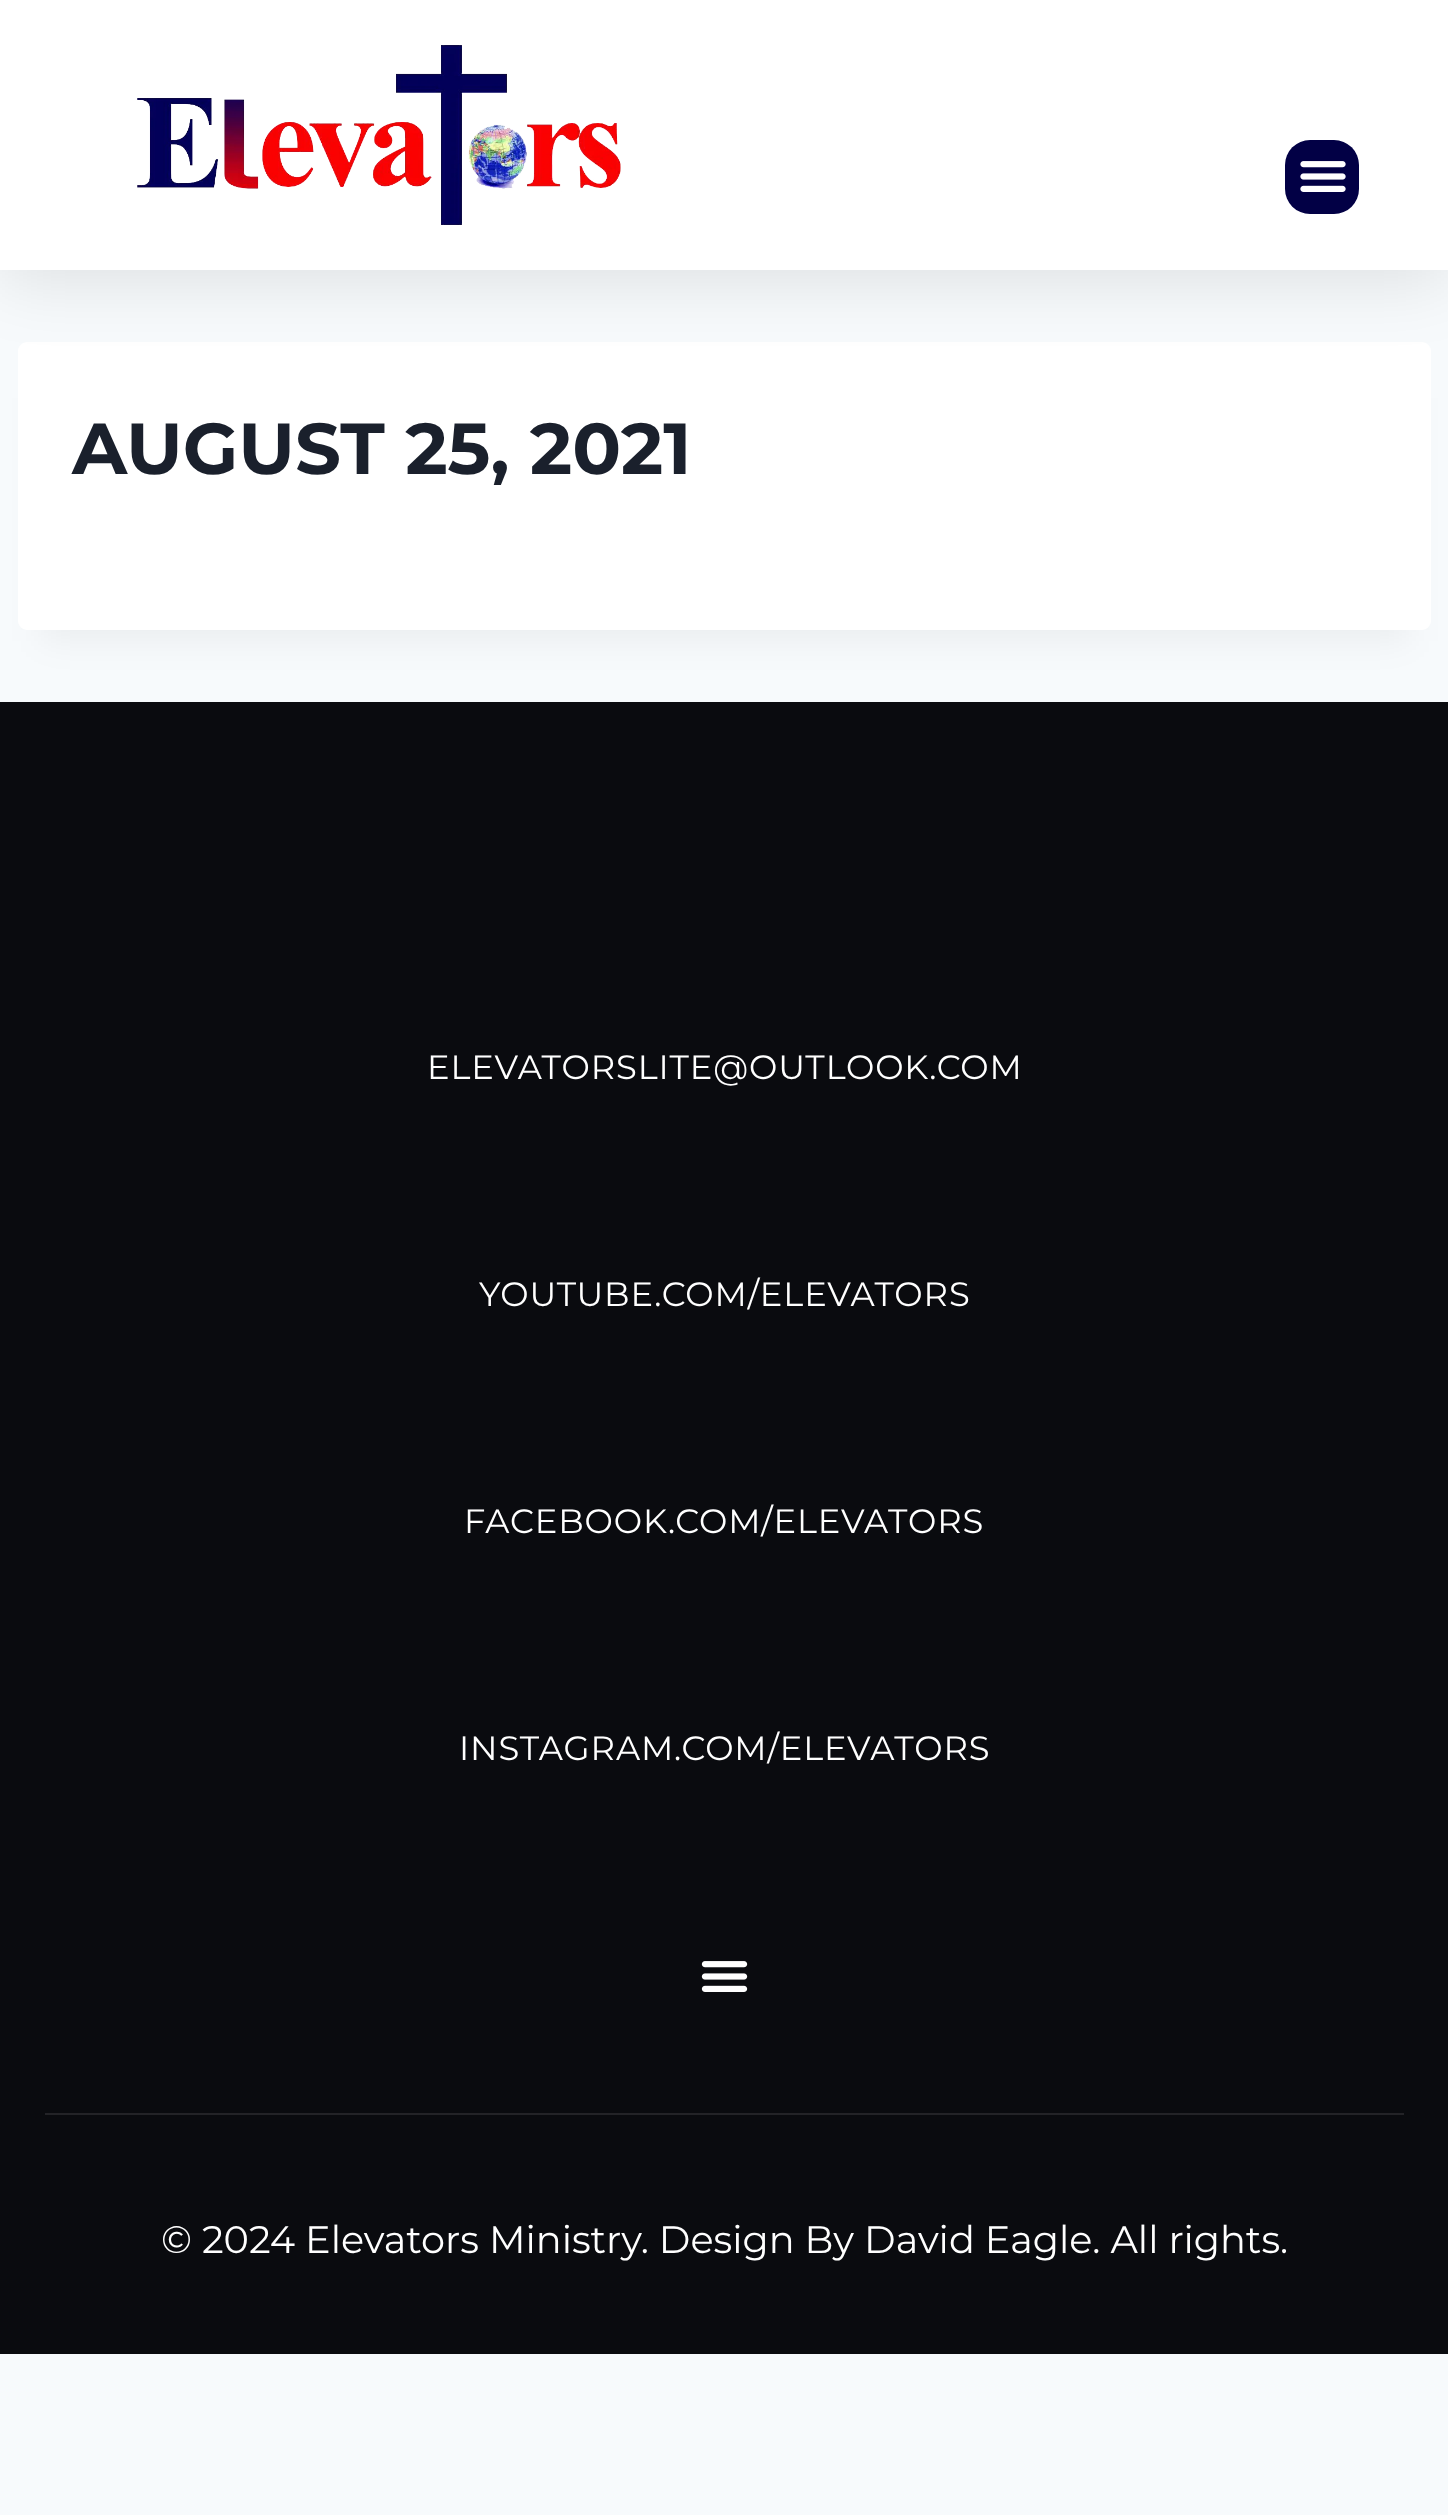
(async () => {
  const canvas = document.querySelector("canvas");
  canvas.width = 1448;
  canvas.height = 2515;
  const ctx = canvas.getContext("2d");
  ctx.miterLimit = 4;
  ctx.fontKerning = "normal";
  async function loadImage(src) {
    const img = new Image();
    img.src = src;
    await img.decode();
    return img;
  }

  ctx.fillStyle = "#f7fafc";
  ctx.fillRect(0, 0, 1448, 2515);
  ctx.fillStyle = "rgba(0, 0, 0, 0.05)";
  ctx.filter = "blur(17px)";
  ctx.beginPath();
  ctx.rect(41, 398, 1368, 243);
  ctx.fill();
  ctx.filter = "none";
  ctx.fillStyle = "#ffffff";
  ctx.beginPath();
  ctx.roundRect(18, 342, 1413, 288, 9);
  ctx.fill();
  ctx.fillStyle = "rgba(0, 0, 0, 0.1)";
  ctx.filter = "blur(34px)";
  ctx.beginPath();
  ctx.rect(0, 11, 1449, 270);
  ctx.fill();
  ctx.filter = "none";
  ctx.fillStyle = "#ffffff";
  ctx.fillRect(0, 0, 1448, 270);
  ctx.drawImage(await loadImage("img/1.png"), 137, 45, 484, 180);
  ctx.fillStyle = "#020045";
  ctx.beginPath();
  ctx.roundRect(1285, 140, 74, 74, 25);
  ctx.fill();
  ctx.drawImage(await loadImage("img/2.png"), 1300, 161, 46, 31);
  ctx.fillStyle = "#0a0b0f";
  ctx.fillRect(0, 702, 1448, 1652);
  ctx.drawImage(await loadImage("img/3.png"), 701, 1961, 47, 31);
  ctx.fillStyle = "#232327";
  ctx.fillRect(45, 2113, 1359, 2);
  ctx.font = "bold 72px Montserrat";
  ctx.fillStyle = "#1a202c";
  ctx.fillText("AUGUST 25, 2021", 72, 474);
  ctx.letterSpacing = "0.9px";
  ctx.font = "33.75px Montserrat";
  ctx.fillStyle = "#ffffff";
  for (const [text, x, y] of [
    ["ELEVATORSLITE@OUTLOOK.COM", 427, 1079],
    ["YOUTUBE.COM/ELEVATORS", 479, 1306],
    ["FACEBOOK.COM/ELEVATORS", 464, 1533],
    ["INSTAGRAM.COM/ELEVATORS", 459, 1760],
  ]) {
    ctx.fillText(text, x, y);
  }
  ctx.letterSpacing = "0px";
  ctx.font = "38.25px Montserrat";
  ctx.fillText("© 2024 Elevators Ministry. Design By David Eagle. All rights.", 161, 2253);
})();
